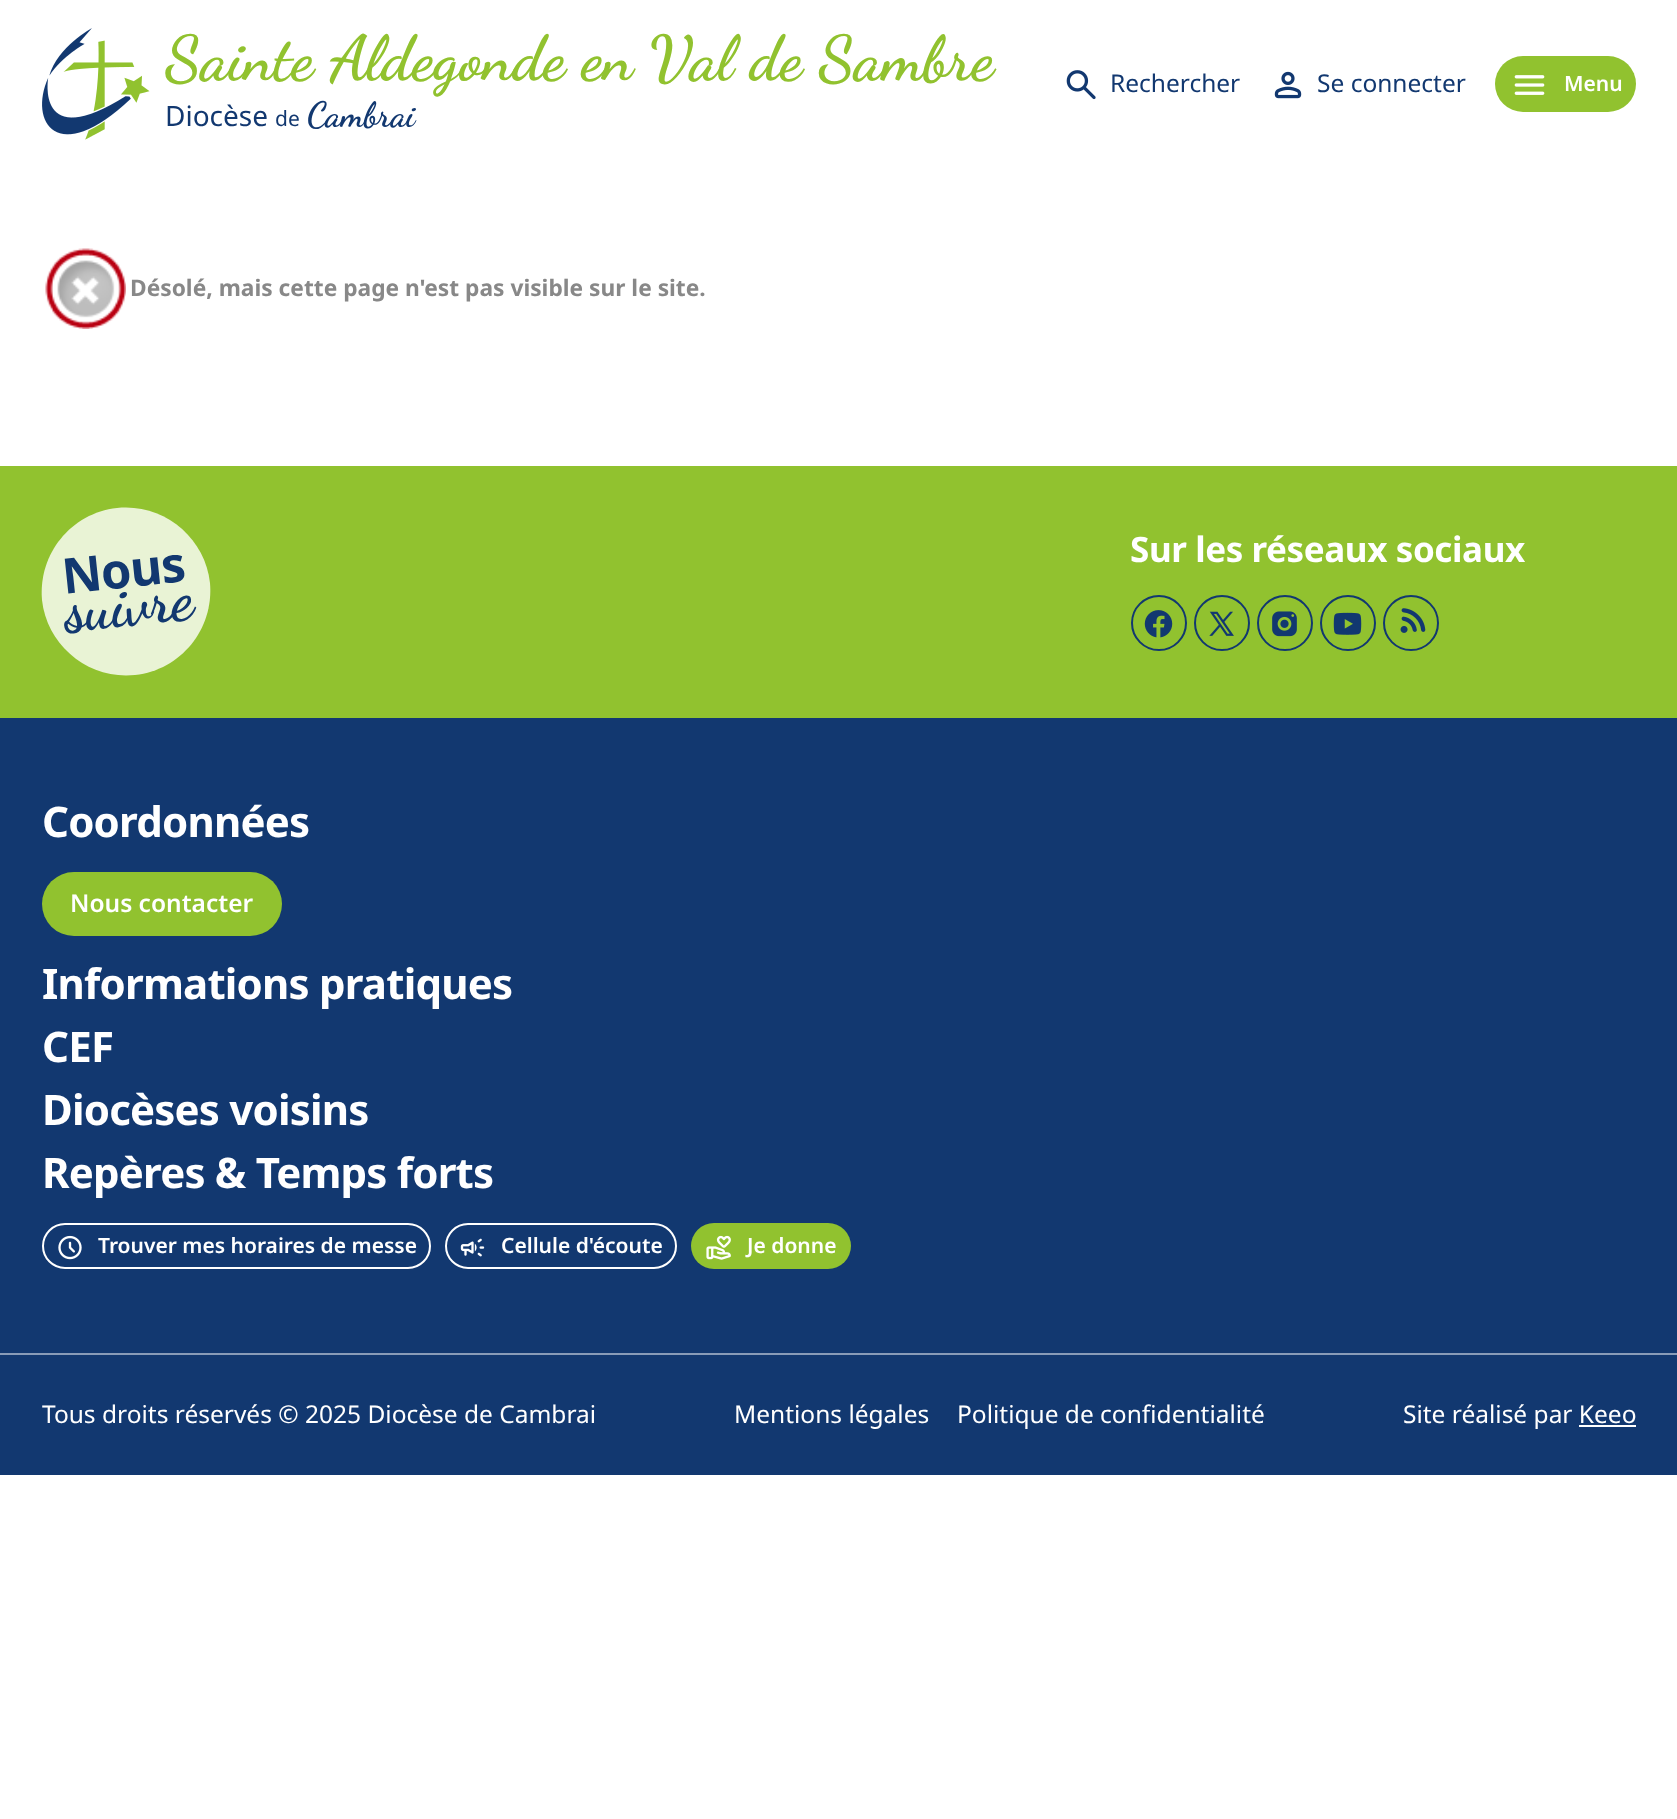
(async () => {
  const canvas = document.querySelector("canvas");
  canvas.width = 1677;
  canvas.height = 1819;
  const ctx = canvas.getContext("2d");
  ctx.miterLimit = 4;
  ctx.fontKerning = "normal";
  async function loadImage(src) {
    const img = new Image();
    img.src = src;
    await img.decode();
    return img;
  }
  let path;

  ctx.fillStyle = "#ffffff";
  ctx.fillRect(0, 0, 1677, 1819);
  ctx.drawImage(await loadImage("img/1.png"), 42, 28, 108, 112);
  ctx.drawImage(await loadImage("img/2.png"), 1066, 70, 30, 30);
  ctx.drawImage(await loadImage("img/3.png"), 1274, 71, 28, 28);
  ctx.fillStyle = "#91c22f";
  ctx.beginPath();
  ctx.roundRect(1495, 56, 141, 56, 28);
  ctx.fill();
  ctx.drawImage(await loadImage("img/4.png"), 1514, 75, 31, 20);
  ctx.drawImage(await loadImage("img/5.png"), 45, 248, 81, 81);
  ctx.fillRect(0, 466, 1677, 252);
  ctx.beginPath();
  ctx.arc(1159, 623, 27, 0, Math.PI * 2);
  ctx.strokeStyle = "#123870";
  ctx.lineWidth = 2;
  ctx.stroke();
  ctx.drawImage(await loadImage("img/6.png"), 1144, 610, 29, 28);
  ctx.beginPath();
  ctx.arc(1222, 623, 27, 0, Math.PI * 2);
  ctx.stroke();
  ctx.drawImage(await loadImage("img/7.png"), 1209, 611, 25, 25);
  ctx.beginPath();
  ctx.arc(1285, 623, 27, 0, Math.PI * 2);
  ctx.stroke();
  ctx.drawImage(await loadImage("img/8.png"), 1272, 611, 25, 26);
  ctx.beginPath();
  ctx.arc(1348, 623, 27, 0, Math.PI * 2);
  ctx.stroke();
  ctx.drawImage(await loadImage("img/9.png"), 1333, 612, 29, 23);
  ctx.beginPath();
  ctx.arc(1411, 623, 27, 0, Math.PI * 2);
  ctx.stroke();
  ctx.drawImage(await loadImage("img/10.png"), 1400, 608, 26, 25);
  ctx.fillStyle = "#e9f3d5";
  path = new Path2D("M117 508C163 503 205 537 210 583C214 629 181 670 135 675C89 680 47 646 42 600C38 554 71 513 117 508Z");
  ctx.fill(path);
  ctx.fillStyle = "#123870";
  ctx.fillRect(0, 718, 1677, 757);
  ctx.fillStyle = "#91c22f";
  ctx.beginPath();
  ctx.roundRect(42, 872, 240, 64, 32);
  ctx.fill();
  ctx.beginPath();
  ctx.roundRect(43, 1224, 387, 44, 22);
  ctx.strokeStyle = "#ffffff";
  ctx.stroke();
  ctx.drawImage(await loadImage("img/11.png"), 58, 1235, 24, 25);
  ctx.beginPath();
  ctx.roundRect(446, 1224, 230, 44, 22);
  ctx.stroke();
  ctx.drawImage(await loadImage("img/12.png"), 460, 1238, 25, 19);
  ctx.beginPath();
  ctx.roundRect(691, 1223, 160, 46, 23);
  ctx.fill();
  ctx.drawImage(await loadImage("img/13.png"), 706, 1235, 25, 25);
  ctx.fillStyle = "#899cb8";
  ctx.fillRect(0, 1353, 1677, 2);
  ctx.fillStyle = "#ffffff";
  ctx.fillRect(1579, 1425, 57, 2);
  ctx.font = "bold 63px Dancing Script";
  ctx.fillStyle = "#91c22f";
  ctx.fillText("Sainte Aldegonde en Val de Sambre", 165, 79);
  ctx.font = "28px Noto Sans";
  ctx.fillStyle = "#123870";
  ctx.fillText("Diocèse", 165, 126);
  ctx.font = "21px Noto Sans";
  ctx.fillText("de", 275, 126);
  ctx.font = "bold 35px Dancing Script";
  ctx.fillText("Cambrai", 307, 126);
  ctx.font = "24.5px Noto Sans";
  ctx.fillText("Rechercher", 1110, 92);
  ctx.fillText("Se connecter", 1317, 92);
  ctx.font = "600 21px Noto Sans";
  ctx.fillStyle = "#ffffff";
  ctx.fillText("Menu", 1564, 91);
  ctx.font = "bold 22.75px Noto Sans";
  ctx.fillStyle = "#888888";
  ctx.fillText("Désolé, mais cette page n'est pas visible sur le site.", 130, 296);
  ctx.letterSpacing = "-0.4px";
  ctx.font = "bold 35px Noto Sans";
  ctx.fillStyle = "#ffffff";
  ctx.fillText("Sur les réseaux sociaux", 1130, 562);
  ctx.letterSpacing = "-1px";
  ctx.font = "bold 49px Noto Sans";
  ctx.fillStyle = "#123870";
  ctx.save();
  ctx.translate(64, 594);
  ctx.rotate(-6 * Math.PI / 180);
  ctx.fillText("Nous", 0, 0);
  ctx.restore();
  ctx.letterSpacing = "-1.25px";
  ctx.font = "bold 63px Dancing Script";
  ctx.save();
  ctx.translate(66, 631);
  ctx.rotate(-6 * Math.PI / 180);
  ctx.fillText("suivre", 0, 0);
  ctx.restore();
  ctx.letterSpacing = "-0.8px";
  ctx.font = "bold 42px Noto Sans";
  ctx.fillStyle = "#ffffff";
  ctx.fillText("Coordonnées", 42, 837);
  ctx.letterSpacing = "0px";
  ctx.font = "600 24.5px Noto Sans";
  ctx.fillText("Nous contacter", 70, 912);
  ctx.letterSpacing = "-0.8px";
  ctx.font = "bold 42px Noto Sans";
  for (const [text, x, y] of [
    ["Informations pratiques", 42, 999],
    ["CEF", 42, 1062],
    ["Diocèses voisins", 42, 1125],
    ["Repères & Temps forts", 42, 1188],
  ]) {
    ctx.fillText(text, x, y);
  }
  ctx.letterSpacing = "0px";
  ctx.font = "600 21px Noto Sans";
  for (const [text, x, y] of [
    ["Trouver mes horaires de messe", 98, 1253],
    ["Cellule d'écoute", 501, 1253],
    ["Je donne", 747, 1253],
  ]) {
    ctx.fillText(text, x, y);
  }
  ctx.font = "24.5px Noto Sans";
  for (const [text, x, y] of [
    ["Tous droits réservés © 2025 Diocèse de Cambrai", 42, 1423],
    ["Mentions légales", 734, 1423],
    ["Politique de confidentialité", 957, 1423],
    ["Site réalisé par Keeo", 1403, 1423],
  ]) {
    ctx.fillText(text, x, y);
  }
})();
